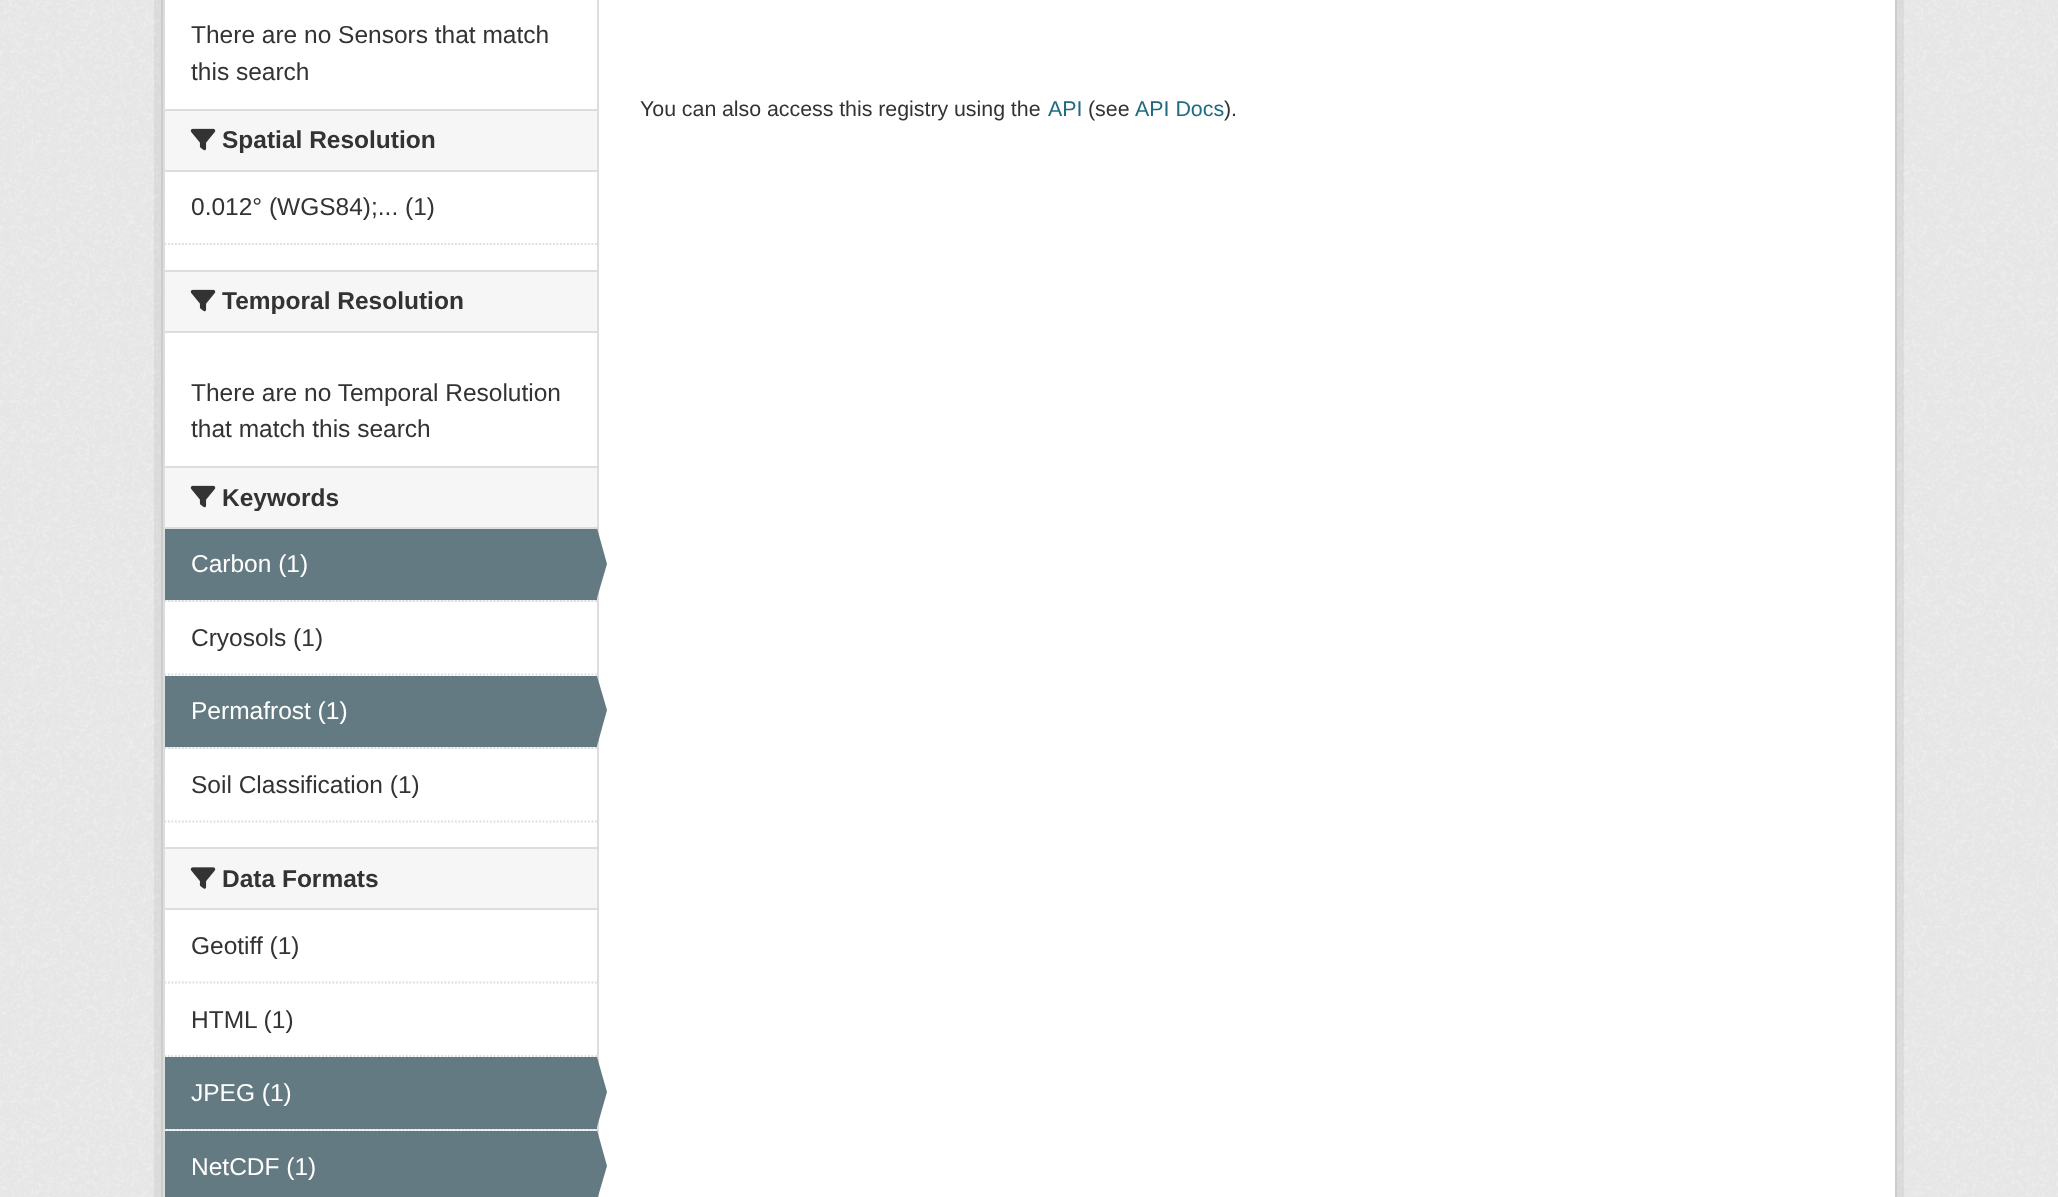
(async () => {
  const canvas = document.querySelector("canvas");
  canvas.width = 2058;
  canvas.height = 1197;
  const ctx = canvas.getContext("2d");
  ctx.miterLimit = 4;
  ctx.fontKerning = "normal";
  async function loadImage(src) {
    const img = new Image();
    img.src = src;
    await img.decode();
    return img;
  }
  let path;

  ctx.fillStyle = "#eeeeee";
  ctx.fillRect(0, 0, 2058, 1197);
  ctx.drawImage(await loadImage("img/1.png"), 0, 0, 2058, 1197);
  ctx.strokeStyle = "rgba(0, 0, 0, 0.05)";
  ctx.lineWidth = 7;
  ctx.strokeRect(157.5, -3.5, 1743, 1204);
  ctx.fillStyle = "#ffffff";
  ctx.fillRect(165, 0, 1730, 1197);
  ctx.strokeStyle = "#cccccc";
  ctx.lineWidth = 2;
  ctx.strokeRect(162, -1, 1734, 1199);
  for (const [x, y, w, h, color] of [
    [163, 0, 2, 1197, "#dddddd"],
    [165, 111, 432, 59, "#f6f6f6"],
    [165, 109, 432, 2, "#dddddd"],
    [165, 170, 432, 2, "#dddddd"],
  ]) {
    ctx.fillStyle = color;
    ctx.fillRect(x, y, w, h);
  }
  ctx.drawImage(await loadImage("img/2.png"), 190, 128, 26, 23);
  path = new Path2D("M164.5 244H597");
  ctx.strokeStyle = "#dddddd";
  ctx.lineWidth = 1.8;
  ctx.setLineDash([1.75, 1.75]);
  ctx.stroke(path);
  for (const [x, y, w, h, color] of [
    [165, 272, 432, 59, "#f6f6f6"],
    [165, 270, 432, 2, "#dddddd"],
    [165, 331, 432, 2, "#dddddd"],
  ]) {
    ctx.fillStyle = color;
    ctx.fillRect(x, y, w, h);
  }
  ctx.drawImage(await loadImage("img/2.png"), 190, 289, 26, 23);
  for (const [x, y, w, h, color] of [
    [165, 468, 432, 59, "#f6f6f6"],
    [165, 466, 432, 2, "#dddddd"],
    [165, 527, 432, 2, "#dddddd"],
  ]) {
    ctx.fillStyle = color;
    ctx.fillRect(x, y, w, h);
  }
  ctx.drawImage(await loadImage("img/2.png"), 190, 485, 26, 23);
  ctx.fillStyle = "#f6f6f6";
  ctx.fillRect(165, 600, 432, 2);
  path = new Path2D("M164.5 601H597");
  ctx.stroke(path);
  ctx.fillStyle = "#647a82";
  ctx.fillRect(165, 529, 432, 71);
  ctx.fillStyle = "#dddddd";
  ctx.fillRect(597, 0, 2, 1197);
  ctx.fillStyle = "#647a82";
  path = new Path2D("M597 598V528L607 564Z");
  ctx.fill(path);
  path = new Path2D("M164.5 674.5H597");
  ctx.stroke(path);
  ctx.fillStyle = "#f6f6f6";
  ctx.fillRect(165, 747, 432, 2);
  path = new Path2D("M164.5 748H597");
  ctx.stroke(path);
  ctx.fillStyle = "#647a82";
  ctx.fillRect(165, 676, 432, 71);
  path = new Path2D("M597 746V676L607 710Z");
  ctx.fill(path);
  path = new Path2D("M164.5 821.5H597");
  ctx.stroke(path);
  for (const [x, y, w, h, color] of [
    [165, 849, 432, 59, "#f6f6f6"],
    [165, 847, 432, 2, "#dddddd"],
    [165, 908, 432, 2, "#dddddd"],
  ]) {
    ctx.fillStyle = color;
    ctx.fillRect(x, y, w, h);
  }
  ctx.drawImage(await loadImage("img/3.png"), 190, 867, 26, 22);
  path = new Path2D("M164.5 982.5H597");
  ctx.stroke(path);
  path = new Path2D("M164.5 1056H597");
  ctx.stroke(path);
  ctx.fillStyle = "#f6f6f6";
  ctx.fillRect(165, 1129, 432, 2);
  path = new Path2D("M164.5 1129.5H597");
  ctx.stroke(path);
  ctx.fillStyle = "#647a82";
  ctx.fillRect(165, 1057, 432, 72);
  path = new Path2D("M597 1127V1057L607 1092Z");
  ctx.fill(path);
  ctx.fillRect(165, 1131, 432, 66);
  path = new Path2D("M597 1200V1130L607 1166Z");
  ctx.fill(path);
  ctx.font = "24.5px Liberation Sans";
  ctx.fillStyle = "#333333";
  ctx.fillText("There are no Sensors that match", 191, 43);
  ctx.fillText("this search", 191, 80);
  ctx.font = "bold 24.5px Liberation Sans";
  ctx.fillText("Spatial Resolution", 222, 148);
  ctx.font = "24.5px Liberation Sans";
  ctx.fillText("0.012° (WGS84);... (1)", 191, 215);
  ctx.font = "bold 24.5px Liberation Sans";
  ctx.fillText("Temporal Resolution", 222, 309);
  ctx.font = "24.5px Liberation Sans";
  ctx.fillText("There are no Temporal Resolution", 191, 401);
  ctx.fillText("that match this search", 191, 437);
  ctx.font = "bold 24.5px Liberation Sans";
  ctx.fillText("Keywords", 222, 506);
  ctx.font = "24.5px Liberation Sans";
  ctx.fillStyle = "#ffffff";
  ctx.fillText("Carbon (1)", 191, 572);
  ctx.fillStyle = "#333333";
  ctx.fillText("Cryosols (1)", 191, 646);
  ctx.fillStyle = "#ffffff";
  ctx.fillText("Permafrost (1)", 191, 719);
  ctx.fillStyle = "#333333";
  ctx.fillText("Soil Classification (1)", 191, 793);
  ctx.font = "bold 24.5px Liberation Sans";
  ctx.fillText("Data Formats", 222, 887);
  ctx.font = "24.5px Liberation Sans";
  ctx.fillText("Geotiff (1)", 191, 954);
  ctx.fillText("HTML (1)", 191, 1028);
  ctx.fillStyle = "#ffffff";
  ctx.fillText("JPEG (1)", 191, 1101);
  ctx.fillText("NetCDF (1)", 191, 1175);
  ctx.wordSpacing = "-0.25px";
  ctx.font = "21.4px Liberation Sans";
  ctx.fillStyle = "#333333";
  ctx.fillText("You can also access this registry using the", 640, 116);
  ctx.wordSpacing = "0px";
  ctx.fillStyle = "#206b82";
  ctx.fillText("API", 1048, 116);
  ctx.fillStyle = "#333333";
  ctx.fillText("(see", 1088, 116);
  ctx.fillStyle = "#206b82";
  ctx.fillText("API Docs", 1135, 116);
  ctx.fillStyle = "#333333";
  ctx.fillText(").", 1224, 116);
})();
